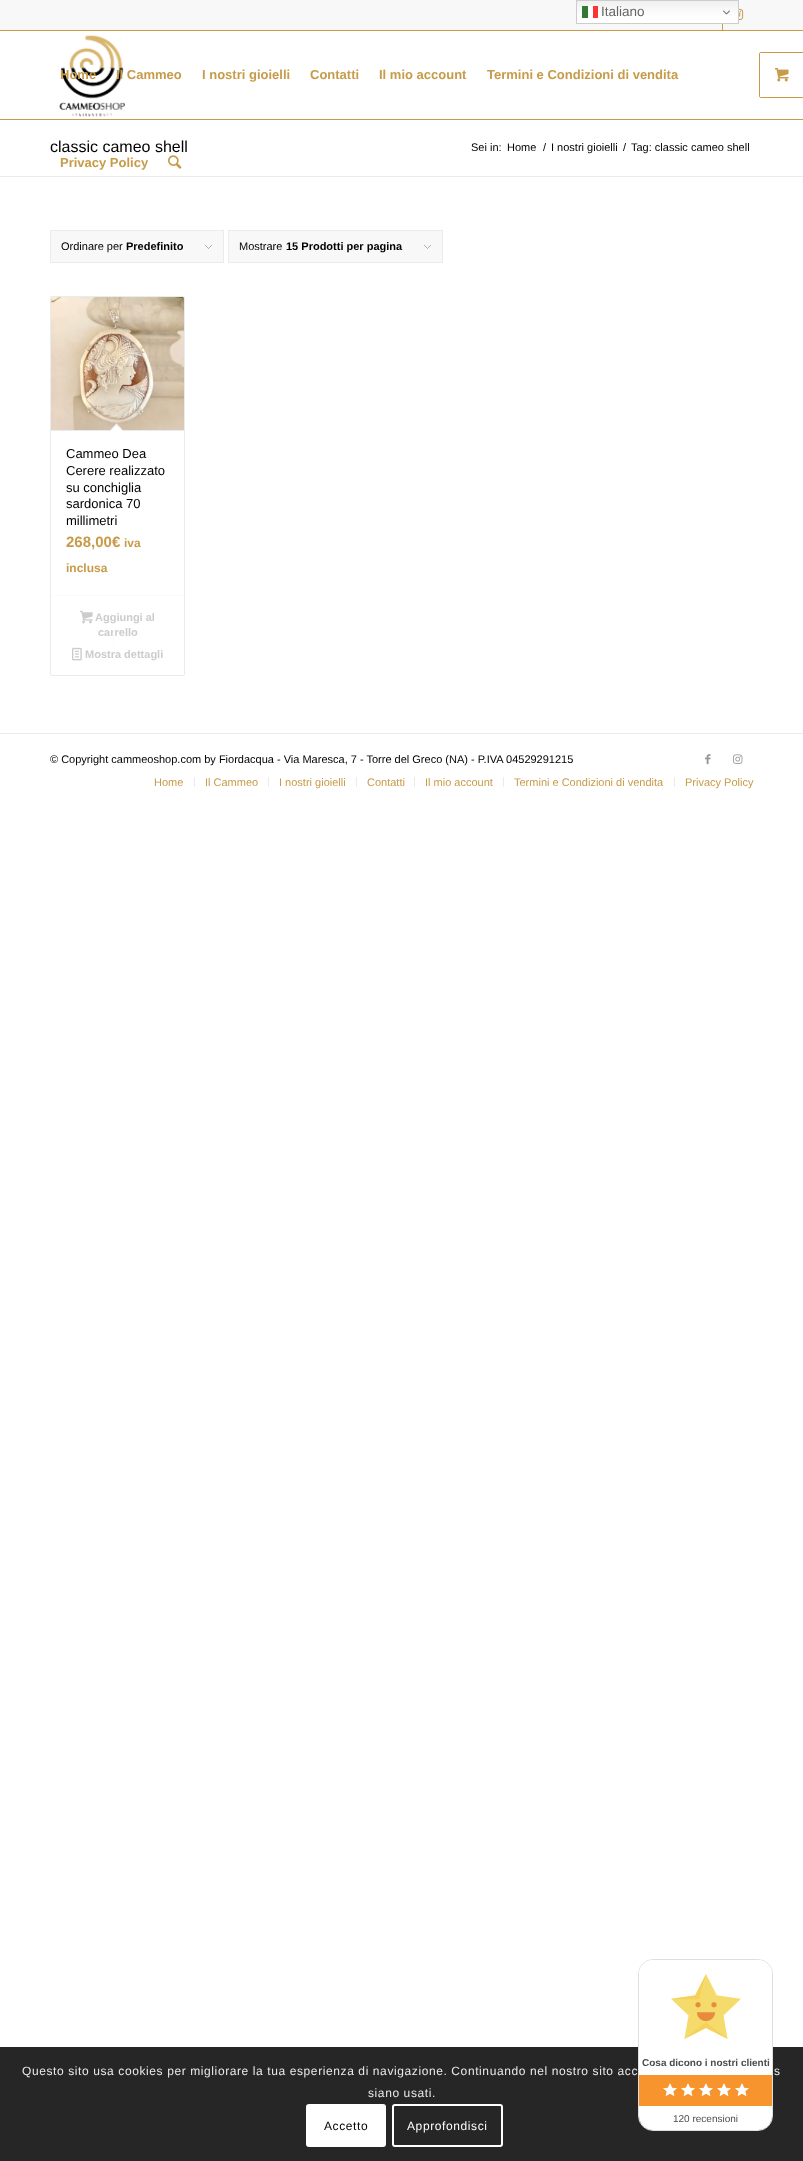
(async () => {
  const canvas = document.querySelector("canvas");
  canvas.width = 803;
  canvas.height = 2161;
  const ctx = canvas.getContext("2d");
  ctx.miterLimit = 4;
  ctx.fontKerning = "normal";
  async function loadImage(src) {
    const img = new Image();
    img.src = src;
    await img.decode();
    return img;
  }
  let gradient, path;

  ctx.fillStyle = "#ffffff";
  ctx.fillRect(0, 0, 803, 2161);
  ctx.fillStyle = "#f8f8f8";
  ctx.fillRect(0, 0, 803, 30);
  gradient = ctx.createLinearGradient(658, 0, 658, 24);
  gradient.addColorStop(0, "#efefef");
  gradient.addColorStop(0.7, "#ffffff");
  ctx.fillStyle = gradient;
  ctx.fillRect(577, 1, 161, 22);
  gradient = ctx.createLinearGradient(658, 0, 658, 24);
  gradient.addColorStop(0, "#fcfcfc");
  gradient.addColorStop(0.7, "#ffffff");
  ctx.fillStyle = gradient;
  ctx.fillRect(588, 6, 5, 12);
  ctx.strokeStyle = "#cccccc";
  ctx.strokeRect(576.5, 0.5, 162, 23);
  ctx.fillStyle = "#337833";
  ctx.fillRect(582, 6, 6, 12);
  ctx.fillStyle = "#fc3333";
  ctx.fillRect(593, 6, 5, 12);
  ctx.drawImage(await loadImage("img/1.png"), 723, 10, 7, 5);
  ctx.fillStyle = "#c79b49";
  ctx.fillRect(0, 30, 803, 1);
  ctx.drawImage(await loadImage("img/2.png"), 739, 8, 5, 12);
  ctx.fillRect(722, 24, 1, 6);
  ctx.fillRect(0, 119, 803, 1);
  ctx.drawImage(await loadImage("img/3.png"), 59, 35, 66, 82);
  ctx.drawImage(await loadImage("img/4.png"), 168, 155, 14, 14);
  ctx.beginPath();
  ctx.roundRect(759.5, 52.5, 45, 45, 1.5);
  ctx.strokeStyle = "#c79b49";
  ctx.stroke();
  ctx.fillStyle = "#ffffff";
  ctx.fillRect(760, 53, 1, 44);
  ctx.drawImage(await loadImage("img/5.png"), 775, 68, 14, 14);
  ctx.fillStyle = "#ebebeb";
  ctx.fillRect(0, 176, 803, 1);
  ctx.fillStyle = "#f8f8f8";
  ctx.fillRect(51, 231, 172, 31);
  ctx.drawImage(await loadImage("img/6.png"), 205, 245, 7, 4);
  ctx.strokeStyle = "#ebebeb";
  ctx.strokeRect(50.5, 230.5, 173, 32);
  ctx.fillRect(229, 231, 213, 31);
  ctx.drawImage(await loadImage("img/6.png"), 424, 245, 7, 4);
  ctx.strokeRect(228.5, 230.5, 214, 32);
  ctx.beginPath();
  ctx.roundRect(50.5, 296.5, 134, 379, 1.5);
  ctx.stroke();
  ctx.drawImage(await loadImage("img/7.png"), 51, 297, 133, 133);
  ctx.fillStyle = "#ebebeb";
  ctx.fillRect(51, 430, 133, 1);
  ctx.fillStyle = "#ffffff";
  path = new Path2D("M116.5 423.5L123.5 431L116.5 438L109.5 431Z");
  ctx.fill(path);
  ctx.fillStyle = "#ebebeb";
  path = new Path2D("M116.5 423.5L123.5 431L123 431.5L116 424.5Z");
  ctx.fill(path);
  path = new Path2D("M116.5 423.5L117 424.5L110 431.5L109.5 431Z");
  ctx.fill(path);
  ctx.fillStyle = "#fbfbfb";
  ctx.fillRect(51, 595, 133, 1);
  ctx.drawImage(await loadImage("img/8.png"), 80, 610, 13, 14);
  ctx.drawImage(await loadImage("img/9.png"), 72, 647, 10, 14);
  ctx.fillStyle = "#ebebeb";
  ctx.fillRect(0, 733, 803, 1);
  ctx.drawImage(await loadImage("img/10.png"), 705, 754, 6, 11);
  ctx.drawImage(await loadImage("img/11.png"), 733, 754, 10, 10);
  for (const [x, y, w, h, color] of [
    [194, 777, 1, 10, "#ebebeb"],
    [268, 777, 1, 10, "#ebebeb"],
    [356, 777, 1, 10, "#ebebeb"],
    [414, 777, 1, 10, "#ebebeb"],
    [503, 777, 1, 10, "#ebebeb"],
    [674, 777, 1, 10, "#ebebeb"],
    [0, 2047, 803, 114, "#262626"],
  ]) {
    ctx.fillStyle = color;
    ctx.fillRect(x, y, w, h);
  }
  ctx.beginPath();
  ctx.roundRect(638.5, 1959.5, 134, 171, 14.5);
  ctx.strokeStyle = "#dfdfdf";
  ctx.stroke();
  ctx.fillStyle = "#ffffff";
  ctx.beginPath();
  ctx.roundRect(639, 1960, 133, 115, [14, 14, 0, 0]);
  ctx.fill();
  ctx.fillStyle = "#f8942d";
  ctx.fillRect(639, 2075, 133, 31);
  ctx.fillStyle = "#ffffff";
  ctx.beginPath();
  ctx.roundRect(639, 2106, 133, 24, [0, 0, 14, 14]);
  ctx.fill();
  ctx.drawImage(await loadImage("img/12.png"), 671, 1974, 70, 65);
  ctx.drawImage(await loadImage("img/13.png"), 663, 2083, 14, 13);
  ctx.drawImage(await loadImage("img/14.png"), 663, 2083, 14, 13);
  ctx.drawImage(await loadImage("img/13.png"), 681, 2083, 14, 13);
  ctx.drawImage(await loadImage("img/14.png"), 681, 2083, 14, 13);
  ctx.drawImage(await loadImage("img/13.png"), 699, 2083, 14, 13);
  ctx.drawImage(await loadImage("img/14.png"), 699, 2083, 14, 13);
  ctx.drawImage(await loadImage("img/13.png"), 717, 2083, 14, 13);
  ctx.drawImage(await loadImage("img/14.png"), 717, 2083, 14, 13);
  ctx.drawImage(await loadImage("img/13.png"), 735, 2083, 14, 13);
  ctx.drawImage(await loadImage("img/15.png"), 735, 2083, 11, 13);
  ctx.beginPath();
  ctx.roundRect(306, 2104, 80, 43, 3);
  ctx.fill();
  ctx.beginPath();
  ctx.roundRect(393, 2105, 109, 41, 2);
  ctx.strokeStyle = "#ffffff";
  ctx.lineWidth = 2;
  ctx.stroke();
  ctx.font = "13.5px Liberation Sans";
  ctx.fillStyle = "#666666";
  ctx.fillText("Italiano", 601, 16);
  ctx.font = "bold 13px Liberation Sans";
  ctx.fillStyle = "#c79b49";
  for (const [text, x, y] of [
    ["Home", 60, 79],
    ["Il Cammeo", 116, 79],
    ["I nostri gioielli", 202, 79],
    ["Contatti", 310, 79],
    ["Il mio account", 379, 79],
    ["Termini e Condizioni di vendita", 487, 79],
    ["Privacy Policy", 60, 167],
  ]) {
    ctx.fillText(text, x, y);
  }
  ctx.font = "16px Liberation Sans";
  ctx.fillStyle = "#000000";
  ctx.fillText("classic cameo shell", 50, 152);
  ctx.font = "11px Liberation Sans";
  for (const [text, x, y] of [
    ["Sei in:", 471, 151],
    ["Home", 507, 151],
    ["/", 543, 151],
    ["I nostri gioielli", 551, 151],
    ["/", 623, 151],
    ["Tag: classic cameo shell", 631, 151],
    ["Ordinare per", 61, 250],
  ]) {
    ctx.fillText(text, x, y);
  }
  ctx.font = "bold 11px Liberation Sans";
  ctx.fillText("Predefinito", 126, 250);
  ctx.font = "11px Liberation Sans";
  ctx.fillText("Mostrare", 239, 250);
  ctx.font = "bold 11px Liberation Sans";
  ctx.fillText("15 Prodotti per pagina", 286, 250);
  ctx.font = "13px Liberation Sans";
  for (const [text, x, y] of [
    ["Cammeo Dea", 66, 458],
    ["Cerere realizzato", 66, 475],
    ["su conchiglia", 66, 492],
    ["sardonica 70", 66, 508],
    ["millimetri", 66, 525],
  ]) {
    ctx.fillText(text, x, y);
  }
  ctx.font = "bold 15px Liberation Sans";
  ctx.fillStyle = "#c79b49";
  ctx.fillText("268,00€", 66, 547);
  ctx.font = "bold 12px Liberation Sans";
  ctx.fillText("iva", 124, 547);
  ctx.fillText("inclusa", 66, 572);
  ctx.font = "bold 11px Liberation Sans";
  ctx.fillStyle = "#cccccc";
  ctx.fillText("Aggiungi al", 95, 621);
  ctx.fillText("carrello", 98, 636);
  ctx.fillStyle = "#fbfbfb";
  ctx.fillRect(113, 630, 1, 14);
  ctx.fillStyle = "#cccccc";
  ctx.fillText("Mostra dettagli", 85, 658);
  ctx.font = "11px Liberation Sans";
  ctx.fillStyle = "#000000";
  ctx.fillText("© Copyright cammeoshop.com by Fiordacqua - Via Maresca, 7 - Torre del Greco (NA) - P.IVA 04529291215", 50, 763);
  ctx.fillStyle = "#c79b49";
  for (const [text, x, y] of [
    ["Home", 154, 786],
    ["Il Cammeo", 205, 786],
    ["I nostri gioielli", 279, 786],
    ["Contatti", 367, 786],
    ["Il mio account", 425, 786],
    ["Termini e Condizioni di vendita", 514, 786],
    ["Privacy Policy", 685, 786],
  ]) {
    ctx.fillText(text, x, y);
  }
  ctx.font = "bold 10px Liberation Sans";
  ctx.fillStyle = "#4c4c4c";
  ctx.fillText("Cosa dicono i nostri clienti", 642, 2066);
  ctx.font = "10px Liberation Sans";
  ctx.fillText("120 recensioni", 673, 2122);
  ctx.letterSpacing = "0.6px";
  ctx.font = "12px Liberation Sans";
  ctx.fillStyle = "#e9e9e9";
  for (const [text, x, y] of [
    ["Questo sito usa cookies per migliorare la tua esperienza di navigazione. Continuando nel nostro sito acc", 22, 2075],
    ["s", 774, 2075],
    ["siano usati.", 368, 2097],
  ]) {
    ctx.fillText(text, x, y);
  }
  ctx.fillStyle = "#000000";
  ctx.fillText("Accetto", 324, 2130);
  ctx.fillStyle = "#ffffff";
  ctx.fillText("Approfondisci", 407, 2130);
})();
